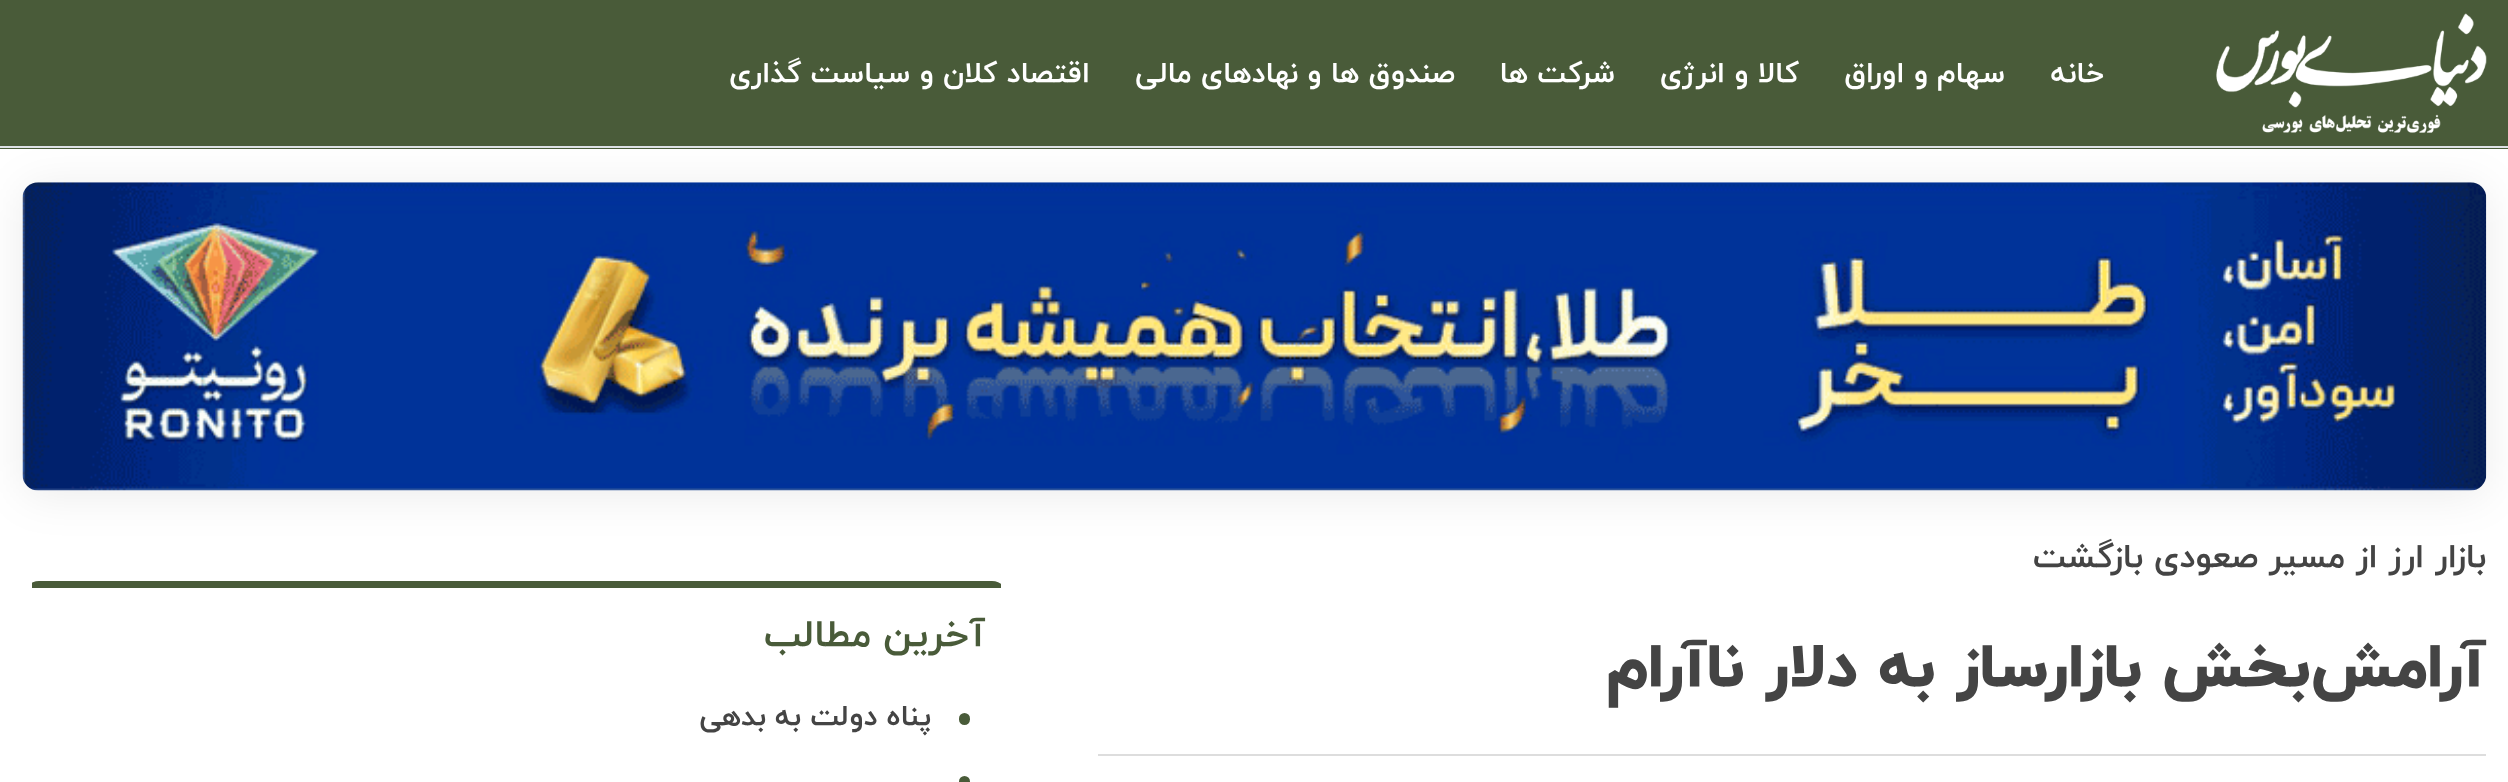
(async () => {
  const canvas = document.querySelector("canvas");
  canvas.width = 2508;
  canvas.height = 782;
  const ctx = canvas.getContext("2d");
  ctx.miterLimit = 4;
  ctx.fontKerning = "normal";
  async function loadImage(src) {
    const img = new Image();
    img.src = src;
    await img.decode();
    return img;
  }

  ctx.fillStyle = "#ffffff";
  ctx.fillRect(0, 0, 2508, 782);
  ctx.fillStyle = "#495b39";
  ctx.fillRect(0, 0, 2508, 149);
  ctx.fillStyle = "#dee2e6";
  ctx.fillRect(0, 146, 2508, 2);
  ctx.fillStyle = "rgba(0, 0, 0, 0.08)";
  ctx.filter = "blur(22.5px)";
  ctx.beginPath();
  ctx.roundRect(23, 187, 2463, 308, 16);
  ctx.fill();
  ctx.filter = "none";
  ctx.drawImage(await loadImage("img/1.png"), 2216, 13, 271, 120);
  ctx.drawImage(await loadImage("img/2.png"), 22, 182, 2465, 309);
  ctx.fillStyle = "#dddddd";
  ctx.fillRect(1098, 754, 1388, 2);
  ctx.save();
  ctx.beginPath();
  ctx.roundRect(23, 581, 985, 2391, 16);
  ctx.clip();
  ctx.fillStyle = "#495b39";
  ctx.fillRect(32, 581, 969, 7);
  ctx.restore();
  ctx.fillStyle = "#495b39";
  ctx.beginPath();
  ctx.roundRect(959, 713, 11, 12, 5.5);
  ctx.fill();
  ctx.beginPath();
  ctx.roundRect(959, 776, 11, 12, 5.5);
  ctx.fill();
  ctx.direction = "rtl";
  ctx.font = "bold 29.25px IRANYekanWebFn";
  ctx.fillStyle = "#ffffff";
  for (const [text, x, y] of [
    ["خانه", 2104, 82],
    ["سهام و اوراق", 2005, 82],
    ["کالا و انرژی", 1799, 82],
    ["شرکت ها", 1615, 82],
    ["صندوق ها و نهادهای مالی", 1455, 82],
    ["اقتصاد کلان و سیاست گذاری", 1090, 82],
  ]) {
    ctx.fillText(text, x, y);
  }
  ctx.font = "bold 33.75px IRANYekanWebFn";
  ctx.fillStyle = "#444444";
  ctx.fillText("بازار ارز از مسیر صعودی بازگشت", 2486, 567);
  ctx.font = "800 63px IRANYekanWebFn";
  ctx.fillText("آرامش‌بخش بازارساز به دلار ناآرام", 2486, 686);
  ctx.font = "bold 38.25px IRANYekanWebFn";
  ctx.fillStyle = "#495b39";
  ctx.fillText("آخرین مطالب", 985, 646);
  ctx.font = "bold 29.25px IRANYekanWebFn";
  ctx.fillStyle = "#444444";
  ctx.fillText("پناه دولت به بدهی", 931, 725);
})();
